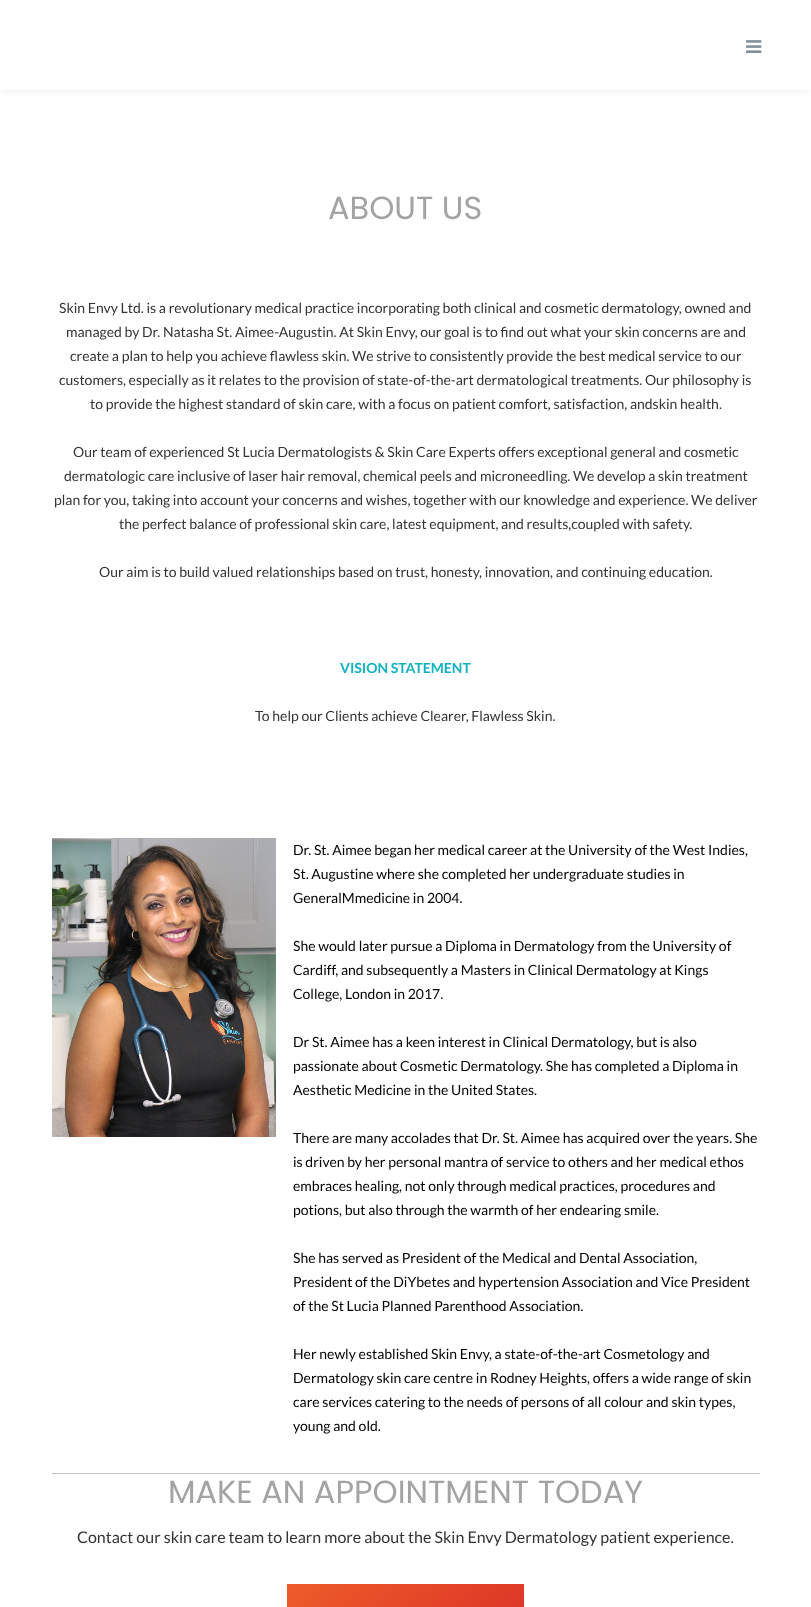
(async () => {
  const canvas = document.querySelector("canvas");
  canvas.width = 811;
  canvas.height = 1607;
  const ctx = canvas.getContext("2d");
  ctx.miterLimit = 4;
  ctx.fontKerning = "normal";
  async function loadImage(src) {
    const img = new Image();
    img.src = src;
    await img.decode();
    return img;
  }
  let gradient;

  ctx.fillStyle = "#ffffff";
  ctx.fillRect(0, 0, 811, 1607);
  ctx.fillStyle = "rgba(0, 0, 0, 0.05)";
  ctx.filter = "blur(3px)";
  ctx.beginPath();
  ctx.rect(0, 2, 811, 90);
  ctx.fill();
  ctx.filter = "none";
  ctx.fillStyle = "#ffffff";
  ctx.fillRect(0, 0, 811, 90);
  ctx.drawImage(await loadImage("img/1.png"), 746, 40, 16, 13);
  ctx.drawImage(await loadImage("img/2.png"), 52, 838, 224, 299);
  ctx.fillStyle = "#c1c1c1";
  ctx.fillRect(52, 1473, 708, 1);
  gradient = ctx.createLinearGradient(334, 1537, 477, 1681);
  gradient.addColorStop(0, "#ee5c2a");
  gradient.addColorStop(1, "#dc3426");
  ctx.fillStyle = gradient;
  ctx.fillRect(287, 1584, 237, 23);
  ctx.font = "32px Poppins";
  ctx.fillStyle = "#a3a3a3";
  ctx.fillText("ABOUT US", 328, 219);
  ctx.font = "14px Lato";
  ctx.fillStyle = "#333333";
  for (const [text, x, y] of [
    ["Skin Envy Ltd. is a revolutionary medical practice incorporating both clinical and cosmetic dermatology, owned and", 59, 313],
    ["managed by Dr. Natasha St. Aimee-Augustin. At Skin Envy, our goal is to find out what your skin concerns are and", 66, 337],
    ["create a plan to help you achieve flawless skin. We strive to consistently provide the best medical service to our", 70, 361],
    ["customers, especially as it relates to the provision of state-of-the-art dermatological treatments. Our philosophy is", 59, 385],
    ["to provide the highest standard of skin care, with a focus on patient comfort, satisfaction, andskin health.", 90, 409],
    ["Our team of experienced St Lucia Dermatologists & Skin Care Experts offers exceptional general and cosmetic", 73, 457],
    ["dermatologic care inclusive of laser hair removal, chemical peels and microneedling. We develop a skin treatment", 64, 481],
    ["plan for you, taking into account your concerns and wishes, together with our knowledge and experience. We deliver", 54, 505],
    ["the perfect balance of professional skin care, latest equipment, and results,coupled with safety.", 119, 529],
    ["Our aim is to build valued relationships based on trust, honesty, innovation, and continuing education.", 99, 577],
  ]) {
    ctx.fillText(text, x, y);
  }
  ctx.font = "bold 14px Lato";
  ctx.fillStyle = "#11b1c0";
  ctx.fillText("VISION STATEMENT", 340, 673);
  ctx.font = "14px Lato";
  ctx.fillStyle = "#333333";
  ctx.fillText("To help our Clients achieve Clearer, Flawless Skin.", 255, 721);
  ctx.fillStyle = "#000000";
  for (const [text, x, y] of [
    ["Dr. St. Aimee began her medical career at the University of the West Indies,", 293, 855],
    ["St. Augustine where she completed her undergraduate studies in", 293, 879],
    ["GeneralMmedicine in 2004.", 293, 903],
    ["She would later pursue a Diploma in Dermatology from the University of", 293, 951],
    ["Cardiff, and subsequently a Masters in Clinical Dermatology at Kings", 293, 975],
    ["College, London in 2017.", 293, 999],
    ["Dr St. Aimee has a keen interest in Clinical Dermatology, but is also", 293, 1047],
    ["passionate about Cosmetic Dermatology. She has completed a Diploma in", 293, 1071],
    ["Aesthetic Medicine in the United States.", 293, 1095],
    ["There are many accolades that Dr. St. Aimee has acquired over the years. She", 293, 1143],
    ["is driven by her personal mantra of service to others and her medical ethos", 293, 1167],
    ["embraces healing, not only through medical practices, procedures and", 293, 1191],
    ["potions, but also through the warmth of her endearing smile.", 293, 1215],
    ["She has served as President of the Medical and Dental Association,", 293, 1263],
    ["President of the DiYbetes and hypertension Association and Vice President", 293, 1287],
    ["of the St Lucia Planned Parenthood Association.", 293, 1311],
    ["Her newly established Skin Envy, a state-of-the-art Cosmetology and", 293, 1359],
    ["Dermatology skin care centre in Rodney Heights, offers a wide range of skin", 293, 1383],
    ["care services catering to the needs of persons of all colour and skin types,", 293, 1407],
    ["young and old.", 293, 1431],
  ]) {
    ctx.fillText(text, x, y);
  }
  ctx.font = "32px Poppins";
  ctx.fillStyle = "#a3a3a3";
  ctx.fillText("MAKE AN APPOINTMENT TODAY", 168, 1503);
  ctx.font = "16px Lato";
  ctx.fillStyle = "#333333";
  ctx.fillText("Contact our skin care team to learn more about the Skin Envy Dermatology patient experience.", 77, 1543);
})();
